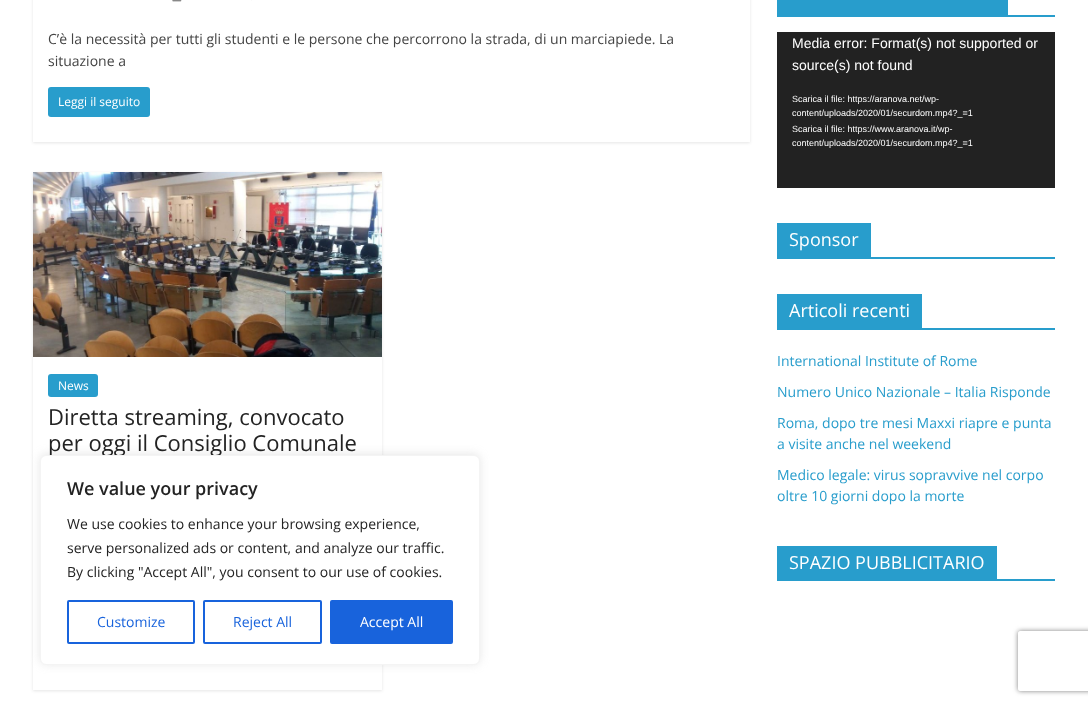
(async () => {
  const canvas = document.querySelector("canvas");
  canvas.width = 1088;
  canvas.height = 705;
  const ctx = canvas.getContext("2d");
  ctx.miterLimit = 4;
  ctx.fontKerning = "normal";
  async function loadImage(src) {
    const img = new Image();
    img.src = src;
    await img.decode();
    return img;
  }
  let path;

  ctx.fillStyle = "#ffffff";
  ctx.fillRect(0, 0, 1088, 705);
  ctx.save();
  path = new Path2D("M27 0H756V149H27ZM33-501H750V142H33Z");
  ctx.clip(path, "evenodd");
  ctx.fillStyle = "rgba(0, 0, 0, 0.1)";
  ctx.filter = "blur(1.5px)";
  ctx.beginPath();
  ctx.rect(33, -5, 717, 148);
  ctx.fill();
  ctx.filter = "none";
  ctx.restore();
  ctx.drawImage(await loadImage("img/1.png"), 172, 0, 10, 2);
  ctx.fillStyle = "#fafafa";
  ctx.fillRect(251, 0, 1, 1);
  ctx.fillStyle = "#289dcc";
  ctx.beginPath();
  ctx.roundRect(48, 87, 102, 30, 3);
  ctx.fill();
  ctx.save();
  path = new Path2D("M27 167H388V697H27ZM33 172H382V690H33Z");
  ctx.clip(path, "evenodd");
  ctx.fillStyle = "rgba(0, 0, 0, 0.1)";
  ctx.filter = "blur(1.5px)";
  ctx.beginPath();
  ctx.rect(33, 173, 349, 518);
  ctx.fill();
  ctx.filter = "none";
  ctx.restore();
  ctx.drawImage(await loadImage("img/2.png"), 33, 172, 349, 185);
  ctx.beginPath();
  ctx.roundRect(48, 374, 50, 23, 3);
  ctx.fill();
  for (const [x, y, w, h, color] of [
    [777, 15, 278, 2, "#289dcc"],
    [777, 0, 231, 15, "#289dcc"],
    [777, 32, 278, 156, "#222222"],
    [777, 257, 278, 2, "#289dcc"],
    [777, 223, 94, 34, "#289dcc"],
    [777, 328, 278, 2, "#289dcc"],
    [777, 294, 145, 34, "#289dcc"],
    [777, 579, 278, 2, "#289dcc"],
    [777, 546, 220, 33, "#289dcc"],
  ]) {
    ctx.fillStyle = color;
    ctx.fillRect(x, y, w, h);
  }
  ctx.fillStyle = "rgba(172, 171, 171, 0.3)";
  ctx.filter = "blur(5px)";
  ctx.beginPath();
  ctx.roundRect(40, 454, 440, 210, 6);
  ctx.fill();
  ctx.filter = "none";
  ctx.save();
  path = new Path2D("M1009 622H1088V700H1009ZM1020 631H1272C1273 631 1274 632 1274 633V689C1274 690 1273 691 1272 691H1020C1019 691 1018 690 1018 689V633C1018 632 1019 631 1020 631Z");
  ctx.clip(path, "evenodd");
  ctx.fillStyle = "#808080";
  ctx.filter = "blur(2.5px)";
  ctx.beginPath();
  ctx.roundRect(1018, 631, 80, 60, 2);
  ctx.fill();
  ctx.filter = "none";
  ctx.restore();
  ctx.font = "14px Open Sans";
  ctx.fillStyle = "#444444";
  ctx.fillText("C’è la necessità per tutti gli studenti e le persone che percorrono la strada, di un marciapiede. La", 48, 44);
  ctx.fillText("situazione a", 48, 66);
  ctx.font = "12px Open Sans";
  ctx.fillStyle = "#ffffff";
  ctx.fillText("Leggi il seguito", 58, 106);
  ctx.fillText("News", 58, 390);
  ctx.font = "22px Open Sans";
  ctx.fillStyle = "#232323";
  ctx.fillText("Diretta streaming, convocato", 48, 425);
  ctx.fillText("per oggi il Consiglio Comunale", 48, 451);
  ctx.font = "14px Liberation Sans";
  ctx.fillStyle = "#ffffff";
  ctx.fillText("Media error: Format(s) not supported or", 792, 48);
  ctx.fillText("source(s) not found", 792, 70);
  ctx.font = "9px Liberation Sans";
  for (const [text, x, y] of [
    ["Scarica il file: https://aranova.net/wp-", 792, 102],
    ["content/uploads/2020/01/securdom.mp4?_=1", 792, 116],
    ["Scarica il file: https://www.aranova.it/wp-", 792, 132],
    ["content/uploads/2020/01/securdom.mp4?_=1", 792, 146],
  ]) {
    ctx.fillText(text, x, y);
  }
  ctx.font = "18px Open Sans";
  ctx.fillText("Sponsor", 789, 246);
  ctx.fillText("Articoli recenti", 789, 317);
  ctx.font = "14px Open Sans";
  ctx.fillStyle = "#289dcc";
  for (const [text, x, y] of [
    ["International Institute of Rome", 777, 366],
    ["Numero Unico Nazionale – Italia Risponde", 777, 397],
    ["Roma, dopo tre mesi Maxxi riapre e punta", 777, 428],
    ["a visite anche nel weekend", 777, 449],
    ["Medico legale: virus sopravvive nel corpo", 777, 480],
    ["oltre 10 giorni dopo la morte", 777, 501],
  ]) {
    ctx.fillText(text, x, y);
  }
  ctx.font = "18px Open Sans";
  ctx.fillStyle = "#ffffff";
  ctx.fillText("SPAZIO PUBBLICITARIO", 789, 569);
  ctx.beginPath();
  ctx.roundRect(40.5, 455.5, 439, 209, 5.5);
  ctx.fill();
  ctx.strokeStyle = "#f4f4f4";
  ctx.stroke();
  ctx.font = "600 18px Open Sans";
  ctx.fillStyle = "#232323";
  ctx.fillText("We value your privacy", 67, 495);
  ctx.font = "14px Open Sans";
  for (const [text, x, y] of [
    ["We use cookies to enhance your browsing experience,", 67, 529],
    ["serve personalized ads or content, and analyze our traffic.", 67, 553],
    ["By clicking \"Accept All\", you consent to our use of cookies.", 67, 577],
  ]) {
    ctx.fillText(text, x, y);
  }
  ctx.beginPath();
  ctx.roundRect(68, 601, 126, 42, 1);
  ctx.strokeStyle = "#1863dc";
  ctx.lineWidth = 2;
  ctx.stroke();
  ctx.fillStyle = "#1863dc";
  ctx.fillText("Customize", 97, 627);
  ctx.beginPath();
  ctx.roundRect(204, 601, 117, 42, 1);
  ctx.stroke();
  ctx.fillText("Reject All", 233, 627);
  ctx.beginPath();
  ctx.roundRect(331, 601, 121, 42, 1);
  ctx.fill();
  ctx.stroke();
  ctx.fillStyle = "#ffffff";
  ctx.fillText("Accept All", 360, 627);
})();
